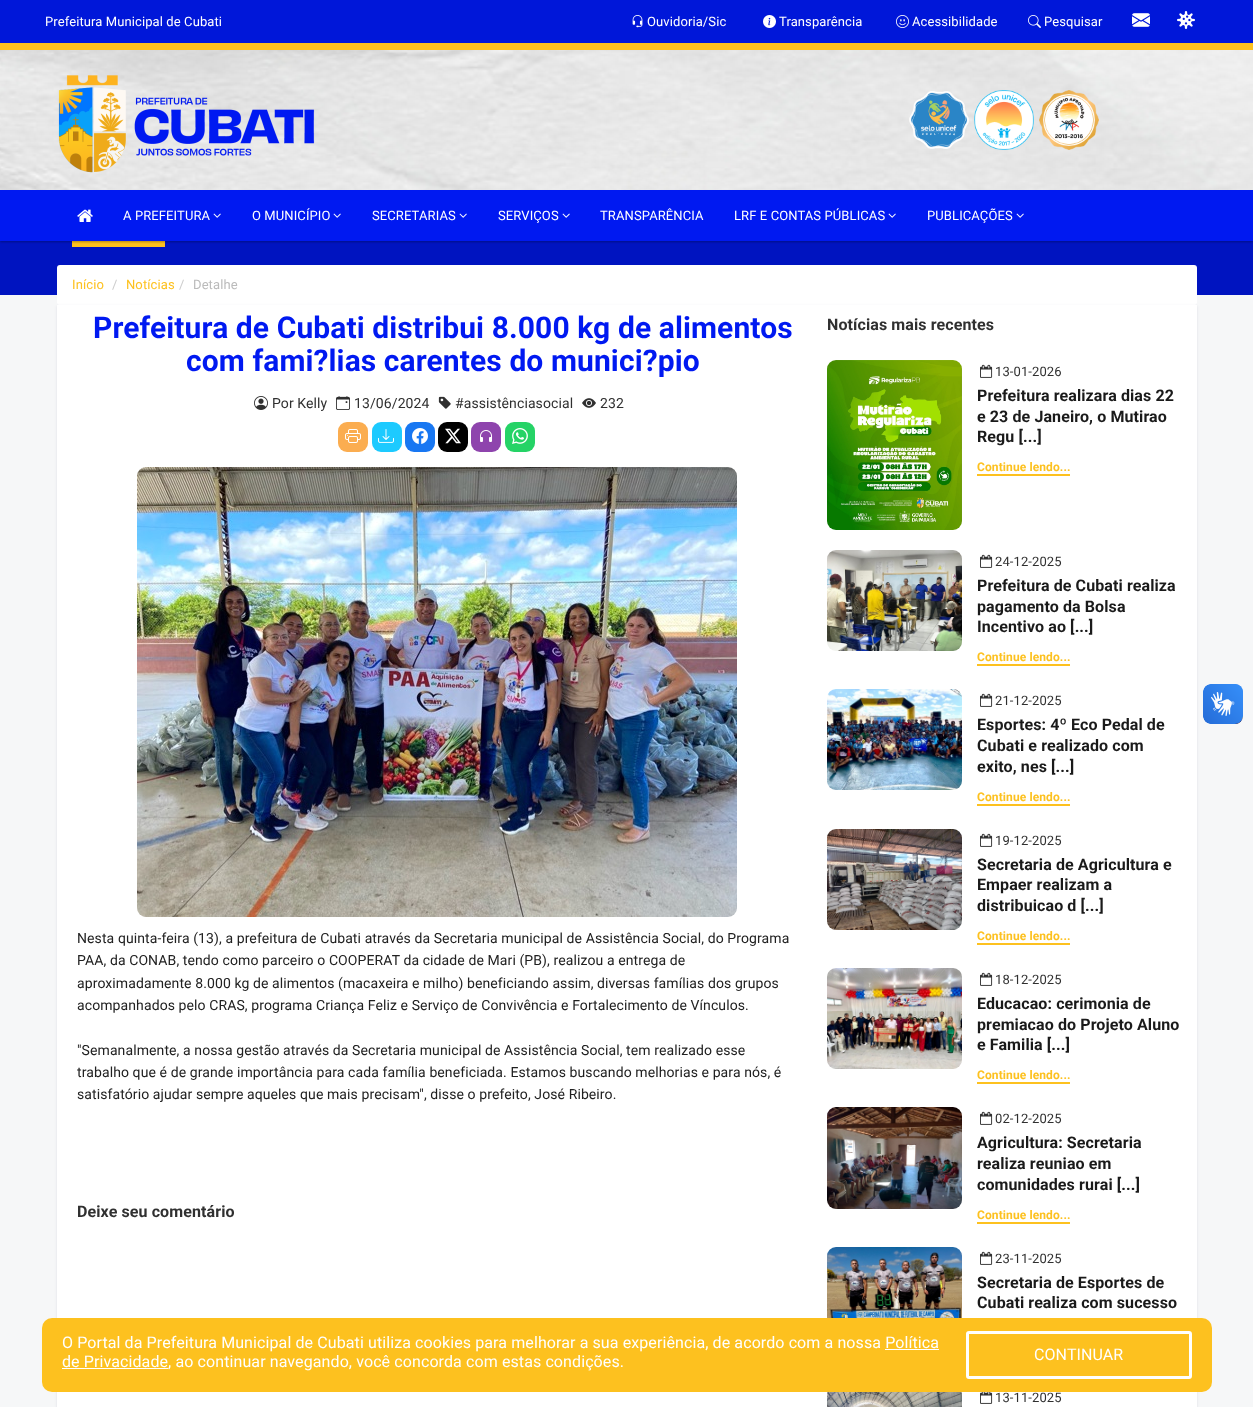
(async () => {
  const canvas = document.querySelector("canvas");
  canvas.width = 1253;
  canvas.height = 1407;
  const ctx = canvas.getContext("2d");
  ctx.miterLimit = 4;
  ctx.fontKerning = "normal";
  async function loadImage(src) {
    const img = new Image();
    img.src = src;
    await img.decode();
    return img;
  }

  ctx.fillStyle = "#f6f7f8";
  ctx.fillRect(0, 0, 1253, 1407);
  ctx.fillStyle = "#0014c0";
  ctx.fillRect(0, 241, 1253, 54);
  ctx.fillStyle = "#fdc11f";
  ctx.fillRect(72, 241, 93, 6);
  ctx.fillStyle = "rgba(0, 0, 0, 0.3)";
  ctx.filter = "blur(1px)";
  ctx.beginPath();
  ctx.rect(0, 1, 1253, 241);
  ctx.fill();
  ctx.filter = "none";
  ctx.drawImage(await loadImage("img/1.png"), 0, 50, 1253, 140);
  ctx.fillStyle = "#0017d9";
  ctx.fillRect(0, 0, 1253, 43);
  ctx.drawImage(await loadImage("img/2.png"), 632, 15, 11, 13);
  ctx.drawImage(await loadImage("img/3.png"), 763, 15, 13, 13);
  ctx.drawImage(await loadImage("img/4.png"), 896, 15, 13, 13);
  ctx.drawImage(await loadImage("img/5.png"), 1028, 15, 13, 13);
  ctx.drawImage(await loadImage("img/6.png"), 1132, 13, 18, 14);
  ctx.drawImage(await loadImage("img/7.png"), 1177, 11, 18, 18);
  ctx.fillStyle = "#fdc11f";
  ctx.fillRect(0, 43, 1253, 7);
  ctx.drawImage(await loadImage("img/8.png"), 58, 75, 257, 98);
  ctx.drawImage(await loadImage("img/9.png"), 909, 91, 60, 58);
  ctx.drawImage(await loadImage("img/10.png"), 974, 90, 60, 60);
  ctx.drawImage(await loadImage("img/11.png"), 1039, 90, 60, 60);
  ctx.fillStyle = "#0019f1";
  ctx.fillRect(0, 190, 1253, 51);
  ctx.drawImage(await loadImage("img/12.png"), 77, 209, 16, 13);
  ctx.drawImage(await loadImage("img/13.png"), 213, 213, 8, 5);
  ctx.drawImage(await loadImage("img/13.png"), 333, 213, 8, 5);
  ctx.drawImage(await loadImage("img/13.png"), 459, 213, 8, 5);
  ctx.drawImage(await loadImage("img/13.png"), 562, 213, 8, 5);
  ctx.drawImage(await loadImage("img/13.png"), 888, 213, 8, 5);
  ctx.drawImage(await loadImage("img/13.png"), 1016, 213, 8, 5);
  ctx.fillStyle = "#ffffff";
  ctx.beginPath();
  ctx.roundRect(57, 265, 1140, 40, 3);
  ctx.fill();
  ctx.fillStyle = "rgba(3, 0, 71, 0.09)";
  ctx.filter = "blur(1.5px)";
  ctx.beginPath();
  ctx.rect(57, 306, 1140, 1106);
  ctx.fill();
  ctx.filter = "none";
  ctx.fillStyle = "#ffffff";
  ctx.fillRect(57, 305, 1140, 1102);
  ctx.drawImage(await loadImage("img/14.png"), 254, 396, 14, 14);
  ctx.drawImage(await loadImage("img/15.png"), 336, 396, 14, 14);
  ctx.drawImage(await loadImage("img/16.png"), 438, 396, 13, 13);
  ctx.drawImage(await loadImage("img/17.png"), 582, 398, 14, 10);
  ctx.fillStyle = "#fbad50";
  ctx.beginPath();
  ctx.roundRect(338, 422, 30, 30, 9);
  ctx.fill();
  ctx.drawImage(await loadImage("img/18.png"), 345, 429, 16, 14);
  ctx.fillStyle = "#1dcaff";
  ctx.beginPath();
  ctx.roundRect(372, 422, 30, 30, 9);
  ctx.fill();
  ctx.drawImage(await loadImage("img/19.png"), 378, 429, 16, 14);
  ctx.fillStyle = "#1877f2";
  ctx.beginPath();
  ctx.roundRect(405, 422, 30, 30, 9);
  ctx.fill();
  ctx.drawImage(await loadImage("img/20.png"), 412, 428, 16, 16);
  ctx.fillStyle = "#000000";
  ctx.beginPath();
  ctx.roundRect(438, 422, 30, 30, 9);
  ctx.fill();
  ctx.drawImage(await loadImage("img/21.png"), 445, 428, 16, 16);
  ctx.fillStyle = "#8e44ad";
  ctx.beginPath();
  ctx.roundRect(471, 422, 30, 30, 9);
  ctx.fill();
  ctx.drawImage(await loadImage("img/22.png"), 480, 430, 13, 12);
  ctx.fillStyle = "#25d366";
  ctx.beginPath();
  ctx.roundRect(505, 422, 30, 30, 9);
  ctx.fill();
  ctx.drawImage(await loadImage("img/23.png"), 512, 428, 16, 16);
  ctx.drawImage(await loadImage("img/24.png"), 137, 467, 600, 450);
  ctx.drawImage(await loadImage("img/25.png"), 827, 360, 135, 170);
  ctx.drawImage(await loadImage("img/26.png"), 980, 364, 13, 14);
  ctx.fillStyle = "#fdc11f";
  ctx.fillRect(977, 474, 93, 2);
  ctx.drawImage(await loadImage("img/27.png"), 827, 550, 135, 101);
  ctx.drawImage(await loadImage("img/26.png"), 980, 554, 13, 14);
  ctx.fillRect(977, 664, 93, 2);
  ctx.drawImage(await loadImage("img/28.png"), 827, 689, 135, 101);
  ctx.drawImage(await loadImage("img/26.png"), 980, 693, 13, 14);
  ctx.fillRect(977, 804, 93, 2);
  ctx.drawImage(await loadImage("img/29.png"), 827, 829, 135, 101);
  ctx.drawImage(await loadImage("img/26.png"), 980, 833, 13, 14);
  ctx.fillRect(977, 943, 93, 2);
  ctx.drawImage(await loadImage("img/30.png"), 827, 968, 135, 101);
  ctx.drawImage(await loadImage("img/26.png"), 980, 972, 13, 14);
  ctx.fillRect(977, 1082, 93, 2);
  ctx.drawImage(await loadImage("img/31.png"), 827, 1107, 135, 102);
  ctx.drawImage(await loadImage("img/26.png"), 980, 1111, 13, 14);
  ctx.fillRect(977, 1222, 93, 2);
  ctx.drawImage(await loadImage("img/32.png"), 827, 1247, 135, 71);
  ctx.drawImage(await loadImage("img/26.png"), 980, 1251, 13, 14);
  ctx.drawImage(await loadImage("img/33.png"), 827, 1392, 135, 15);
  ctx.drawImage(await loadImage("img/34.png"), 980, 1392, 13, 12);
  ctx.drawImage(await loadImage("img/35.png"), 1203, 684, 40, 40);
  ctx.drawImage(await loadImage("img/36.png"), 1203, 684, 40, 40);
  ctx.beginPath();
  ctx.roundRect(42, 1318, 1170, 74, 10);
  ctx.fill();
  ctx.fillStyle = "#ffffff";
  ctx.fillRect(885, 1349, 54, 1);
  ctx.fillRect(62, 1368, 106, 1);
  ctx.beginPath();
  ctx.roundRect(967.5, 1332.5, 223, 45, 1.5);
  ctx.strokeStyle = "#ffffff";
  ctx.lineWidth = 3;
  ctx.stroke();
  ctx.letterSpacing = "0.1px";
  ctx.font = "13px Roboto";
  for (const [text, x, y] of [
    ["Prefeitura Municipal de Cubati", 45, 26],
    ["Ouvidoria/Sic", 647, 26],
    ["Transparência", 779, 26],
    ["Acessibilidade", 912, 26],
    ["Pesquisar", 1044, 26],
    ["A PREFEITURA", 123, 220],
    ["O MUNICÍPIO", 252, 220],
    ["SECRETARIAS", 372, 220],
    ["SERVIÇOS", 498, 220],
    ["TRANSPARÊNCIA", 600, 220],
    ["LRF E CONTAS PÚBLICAS", 734, 220],
    ["PUBLICAÇÕES", 927, 220],
  ]) {
    ctx.fillText(text, x, y);
  }
  ctx.fillStyle = "#fdc11f";
  ctx.fillText("Início", 72, 289);
  ctx.fillStyle = "#cccccc";
  ctx.fillText("/", 112, 289);
  ctx.fillStyle = "#fdc11f";
  ctx.fillText("Notícias", 126, 289);
  ctx.fillStyle = "#cccccc";
  ctx.fillText("/", 179, 289);
  ctx.fillStyle = "#bbbbbb";
  ctx.fillText("Detalhe", 193, 289);
  ctx.font = "bold 30px Roboto";
  ctx.fillStyle = "#0019f1";
  ctx.fillText("Prefeitura de Cubati distribui 8.000 kg de alimentos", 93, 338);
  ctx.fillText("com fami?lias carentes do munici?pio", 186, 371);
  ctx.font = "14px Roboto";
  ctx.fillStyle = "#303030";
  for (const [text, x, y] of [
    ["Por Kelly", 272, 408],
    ["13/06/2024", 354, 408],
    ["#assistênciasocial", 455, 408],
    ["232", 600, 408],
  ]) {
    ctx.fillText(text, x, y);
  }
  ctx.fillStyle = "#212121";
  for (const [text, x, y] of [
    ["Nesta quinta-feira (13), a prefeitura de Cubati através da Secretaria municipal de Assistência Social, do Programa", 77, 943],
    ["PAA, da CONAB, tendo como parceiro o COOPERAT da cidade de Mari (PB), realizou a entrega de", 77, 965],
    ["aproximadamente 8.000 kg de alimentos (macaxeira e milho) beneficiando assim, diversas famílias dos grupos", 77, 988],
    ["acompanhados pelo CRAS, programa Criança Feliz e Serviço de Convivência e Fortalecimento de Vínculos.", 77, 1010],
    ["\"Semanalmente, a nossa gestão através da Secretaria municipal de Assistência Social, tem realizado esse", 77, 1055],
    ["trabalho que é de grande importância para cada família beneficiada. Estamos buscando melhorias e para nós, é", 77, 1077],
    ["satisfatório ajudar sempre aqueles que mais precisam\", disse o prefeito, José Ribeiro.", 77, 1099],
  ]) {
    ctx.fillText(text, x, y);
  }
  ctx.font = "bold 16px Roboto";
  ctx.fillStyle = "#303030";
  ctx.fillText("Deixe seu comentário", 77, 1217);
  ctx.fillText("Notícias mais recentes", 827, 330);
  ctx.font = "13px Roboto";
  ctx.fillText("13-01-2026", 995, 376);
  ctx.font = "bold 16px Roboto";
  ctx.fillStyle = "#1a1a1a";
  for (const [text, x, y] of [
    ["Prefeitura realizara dias 22", 977, 401],
    ["e 23 de Janeiro, o Mutirao", 977, 422],
    ["Regu [...]", 977, 442],
  ]) {
    ctx.fillText(text, x, y);
  }
  ctx.font = "bold 12px Roboto";
  ctx.fillStyle = "#fdc11f";
  ctx.fillText("Continue lendo...", 977, 471);
  ctx.font = "13px Roboto";
  ctx.fillStyle = "#303030";
  ctx.fillText("24-12-2025", 995, 566);
  ctx.font = "bold 16px Roboto";
  ctx.fillStyle = "#1a1a1a";
  for (const [text, x, y] of [
    ["Prefeitura de Cubati realiza", 977, 591],
    ["pagamento da Bolsa", 977, 612],
    ["Incentivo ao [...]", 977, 632],
  ]) {
    ctx.fillText(text, x, y);
  }
  ctx.font = "bold 12px Roboto";
  ctx.fillStyle = "#fdc11f";
  ctx.fillText("Continue lendo...", 977, 661);
  ctx.font = "13px Roboto";
  ctx.fillStyle = "#303030";
  ctx.fillText("21-12-2025", 995, 705);
  ctx.font = "bold 16px Roboto";
  ctx.fillStyle = "#1a1a1a";
  for (const [text, x, y] of [
    ["Esportes: 4º Eco Pedal de", 977, 730],
    ["Cubati e realizado com", 977, 751],
    ["exito, nes [...]", 977, 772],
  ]) {
    ctx.fillText(text, x, y);
  }
  ctx.font = "bold 12px Roboto";
  ctx.fillStyle = "#fdc11f";
  ctx.fillText("Continue lendo...", 977, 801);
  ctx.font = "13px Roboto";
  ctx.fillStyle = "#303030";
  ctx.fillText("19-12-2025", 995, 845);
  ctx.font = "bold 16px Roboto";
  ctx.fillStyle = "#1a1a1a";
  for (const [text, x, y] of [
    ["Secretaria de Agricultura e", 977, 870],
    ["Empaer realizam a", 977, 890],
    ["distribuicao d [...]", 977, 911],
  ]) {
    ctx.fillText(text, x, y);
  }
  ctx.font = "bold 12px Roboto";
  ctx.fillStyle = "#fdc11f";
  ctx.fillText("Continue lendo...", 977, 940);
  ctx.font = "13px Roboto";
  ctx.fillStyle = "#303030";
  ctx.fillText("18-12-2025", 995, 984);
  ctx.font = "bold 16px Roboto";
  ctx.fillStyle = "#1a1a1a";
  for (const [text, x, y] of [
    ["Educacao: cerimonia de", 977, 1009],
    ["premiacao do Projeto Aluno", 977, 1030],
    ["e Familia [...]", 977, 1050],
  ]) {
    ctx.fillText(text, x, y);
  }
  ctx.font = "bold 12px Roboto";
  ctx.fillStyle = "#fdc11f";
  ctx.fillText("Continue lendo...", 977, 1079);
  ctx.font = "13px Roboto";
  ctx.fillStyle = "#303030";
  ctx.fillText("02-12-2025", 995, 1123);
  ctx.font = "bold 16px Roboto";
  ctx.fillStyle = "#1a1a1a";
  for (const [text, x, y] of [
    ["Agricultura: Secretaria", 977, 1148],
    ["realiza reuniao em", 977, 1169],
    ["comunidades rurai [...]", 977, 1190],
  ]) {
    ctx.fillText(text, x, y);
  }
  ctx.font = "bold 12px Roboto";
  ctx.fillStyle = "#fdc11f";
  ctx.fillText("Continue lendo...", 977, 1219);
  ctx.font = "13px Roboto";
  ctx.fillStyle = "#303030";
  ctx.fillText("23-11-2025", 995, 1263);
  ctx.font = "bold 16px Roboto";
  ctx.fillStyle = "#1a1a1a";
  ctx.fillText("Secretaria de Esportes de", 977, 1288);
  ctx.fillText("Cubati realiza com sucesso", 977, 1308);
  ctx.font = "13px Roboto";
  ctx.fillStyle = "#303030";
  ctx.fillText("13-11-2025", 995, 1402);
  ctx.font = "16px Roboto";
  ctx.fillStyle = "#ffffff";
  for (const [text, x, y] of [
    ["O Portal da Prefeitura Municipal de Cubati utiliza cookies para melhorar a sua experiência, de acordo com a nossa Política", 62, 1348],
    ["de Privacidade, ao continuar navegando, você concorda com estas condições.", 62, 1367],
    ["CONTINUAR", 1034, 1360],
  ]) {
    ctx.fillText(text, x, y);
  }
})();
